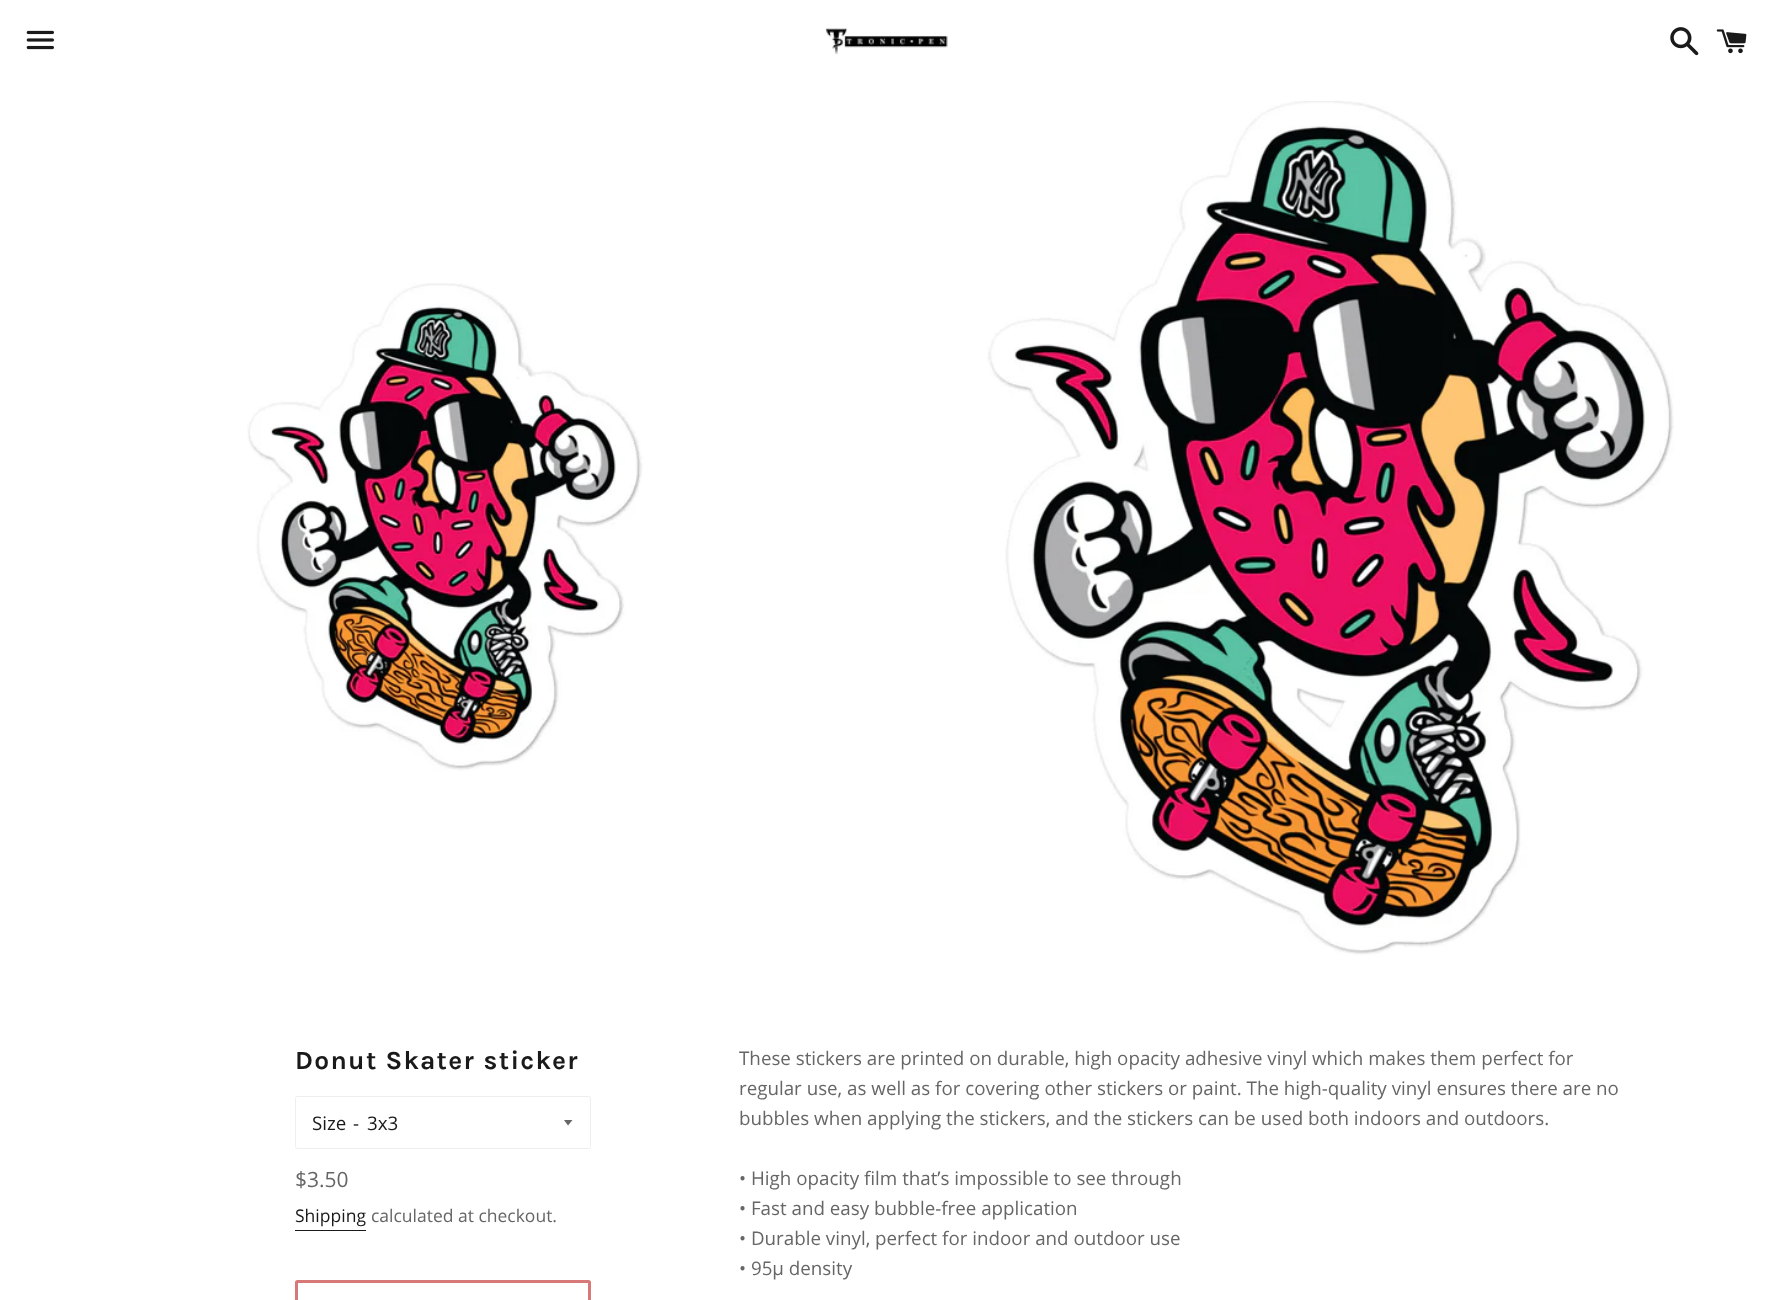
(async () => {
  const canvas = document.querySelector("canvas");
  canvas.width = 1772;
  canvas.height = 1300;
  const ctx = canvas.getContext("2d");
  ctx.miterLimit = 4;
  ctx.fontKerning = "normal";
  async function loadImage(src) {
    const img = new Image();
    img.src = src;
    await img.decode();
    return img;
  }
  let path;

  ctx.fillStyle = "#ffffff";
  ctx.fillRect(0, 0, 1772, 1300);
  ctx.drawImage(await loadImage("img/1.png"), 26, 30, 28, 20);
  ctx.drawImage(await loadImage("img/2.png"), 825, 28, 123, 27);
  ctx.drawImage(await loadImage("img/3.png"), 1670, 27, 29, 29);
  ctx.drawImage(await loadImage("img/4.png"), 1716, 29, 31, 25);
  ctx.drawImage(await loadImage("img/5.png"), 247, 283, 396, 488);
  ctx.drawImage(await loadImage("img/6.png"), 987, 101, 687, 854);
  ctx.beginPath();
  ctx.roundRect(295.5, 1096.5, 295, 52, 2);
  ctx.strokeStyle = "#eeeeee";
  ctx.stroke();
  ctx.fillStyle = "#666666";
  path = new Path2D("M564 1120L568 1125.5L572.5 1120Z");
  ctx.fill(path);
  ctx.fillStyle = "#1a1a1a";
  ctx.fillRect(295, 1230, 71, 1);
  ctx.beginPath();
  ctx.roundRect(296.5, 1281.5, 293, 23, 1);
  ctx.strokeStyle = "#d77979";
  ctx.lineWidth = 3;
  ctx.stroke();
  ctx.letterSpacing = "1.3px";
  ctx.font = "bold 26.25px Karla";
  ctx.fillText("Donut Skater sticker", 295, 1069);
  ctx.letterSpacing = "0px";
  ctx.font = "18.75px Open Sans";
  for (const [text, x, y] of [
    ["Size", 312, 1130],
    ["-", 353, 1130],
    ["3x3", 367, 1130],
  ]) {
    ctx.fillText(text, x, y);
  }
  ctx.font = "21px Open Sans";
  ctx.fillStyle = "#666666";
  ctx.fillText("$3.50", 295, 1187);
  ctx.font = "17.5px Open Sans";
  ctx.fillStyle = "#1a1a1a";
  ctx.fillText("Shipping", 295, 1222);
  ctx.fillStyle = "#666666";
  ctx.fillText("calculated at checkout.", 371, 1222);
  ctx.font = "18.75px Open Sans";
  for (const [text, x, y] of [
    ["These stickers are printed on durable, high opacity adhesive vinyl which makes them perfect for", 739, 1065],
    ["regular use, as well as for covering other stickers or paint. The high-quality vinyl ensures there are no", 739, 1095],
    ["bubbles when applying the stickers, and the stickers can be used both indoors and outdoors.", 739, 1125],
    ["• High opacity film that’s impossible to see through", 739, 1185],
    ["• Fast and easy bubble-free application", 739, 1215],
    ["• Durable vinyl, perfect for indoor and outdoor use", 739, 1245],
    ["• 95µ density", 739, 1275],
  ]) {
    ctx.fillText(text, x, y);
  }
})();
